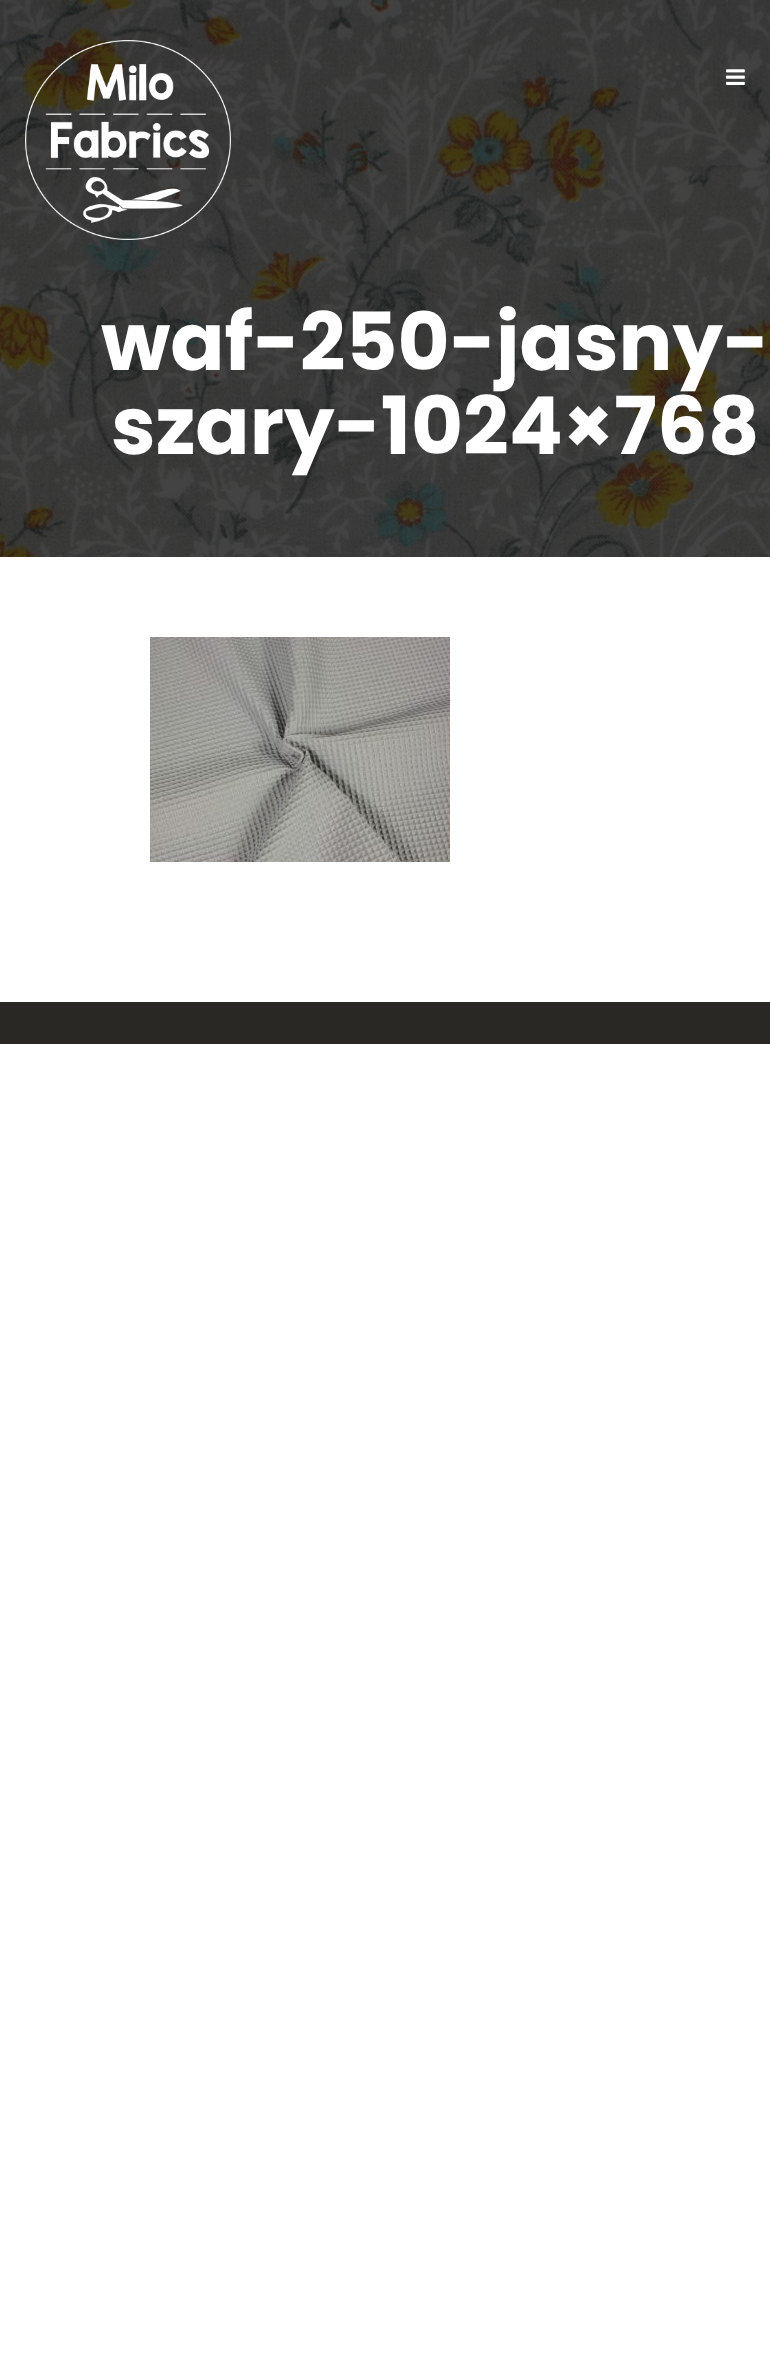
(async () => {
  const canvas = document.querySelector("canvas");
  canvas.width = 770;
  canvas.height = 2377;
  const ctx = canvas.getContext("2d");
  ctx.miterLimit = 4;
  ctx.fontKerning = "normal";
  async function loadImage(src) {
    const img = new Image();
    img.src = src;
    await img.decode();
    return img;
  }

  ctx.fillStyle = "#ffffff";
  ctx.fillRect(0, 0, 770, 2377);
  ctx.drawImage(await loadImage("img/1.png"), 0, 0, 770, 557);
  ctx.fillStyle = "rgba(0, 0, 0, 0.7)";
  ctx.fillRect(0, 0, 770, 240);
  ctx.drawImage(await loadImage("img/2.png"), 25, 40, 206, 200);
  ctx.drawImage(await loadImage("img/3.png"), 726, 69, 19, 16);
  ctx.fillRect(0, 240, 770, 317);
  ctx.drawImage(await loadImage("img/4.png"), 150, 637, 300, 225);
  ctx.fillStyle = "#292825";
  ctx.fillRect(0, 1002, 770, 42);
  ctx.font = "bold 80px Poppins";
  ctx.fillStyle = "#ffffff";
  ctx.fillText("waf-250-jasny-", 101, 370);
  ctx.fillText("szary-1024×768", 111, 454);
})();
